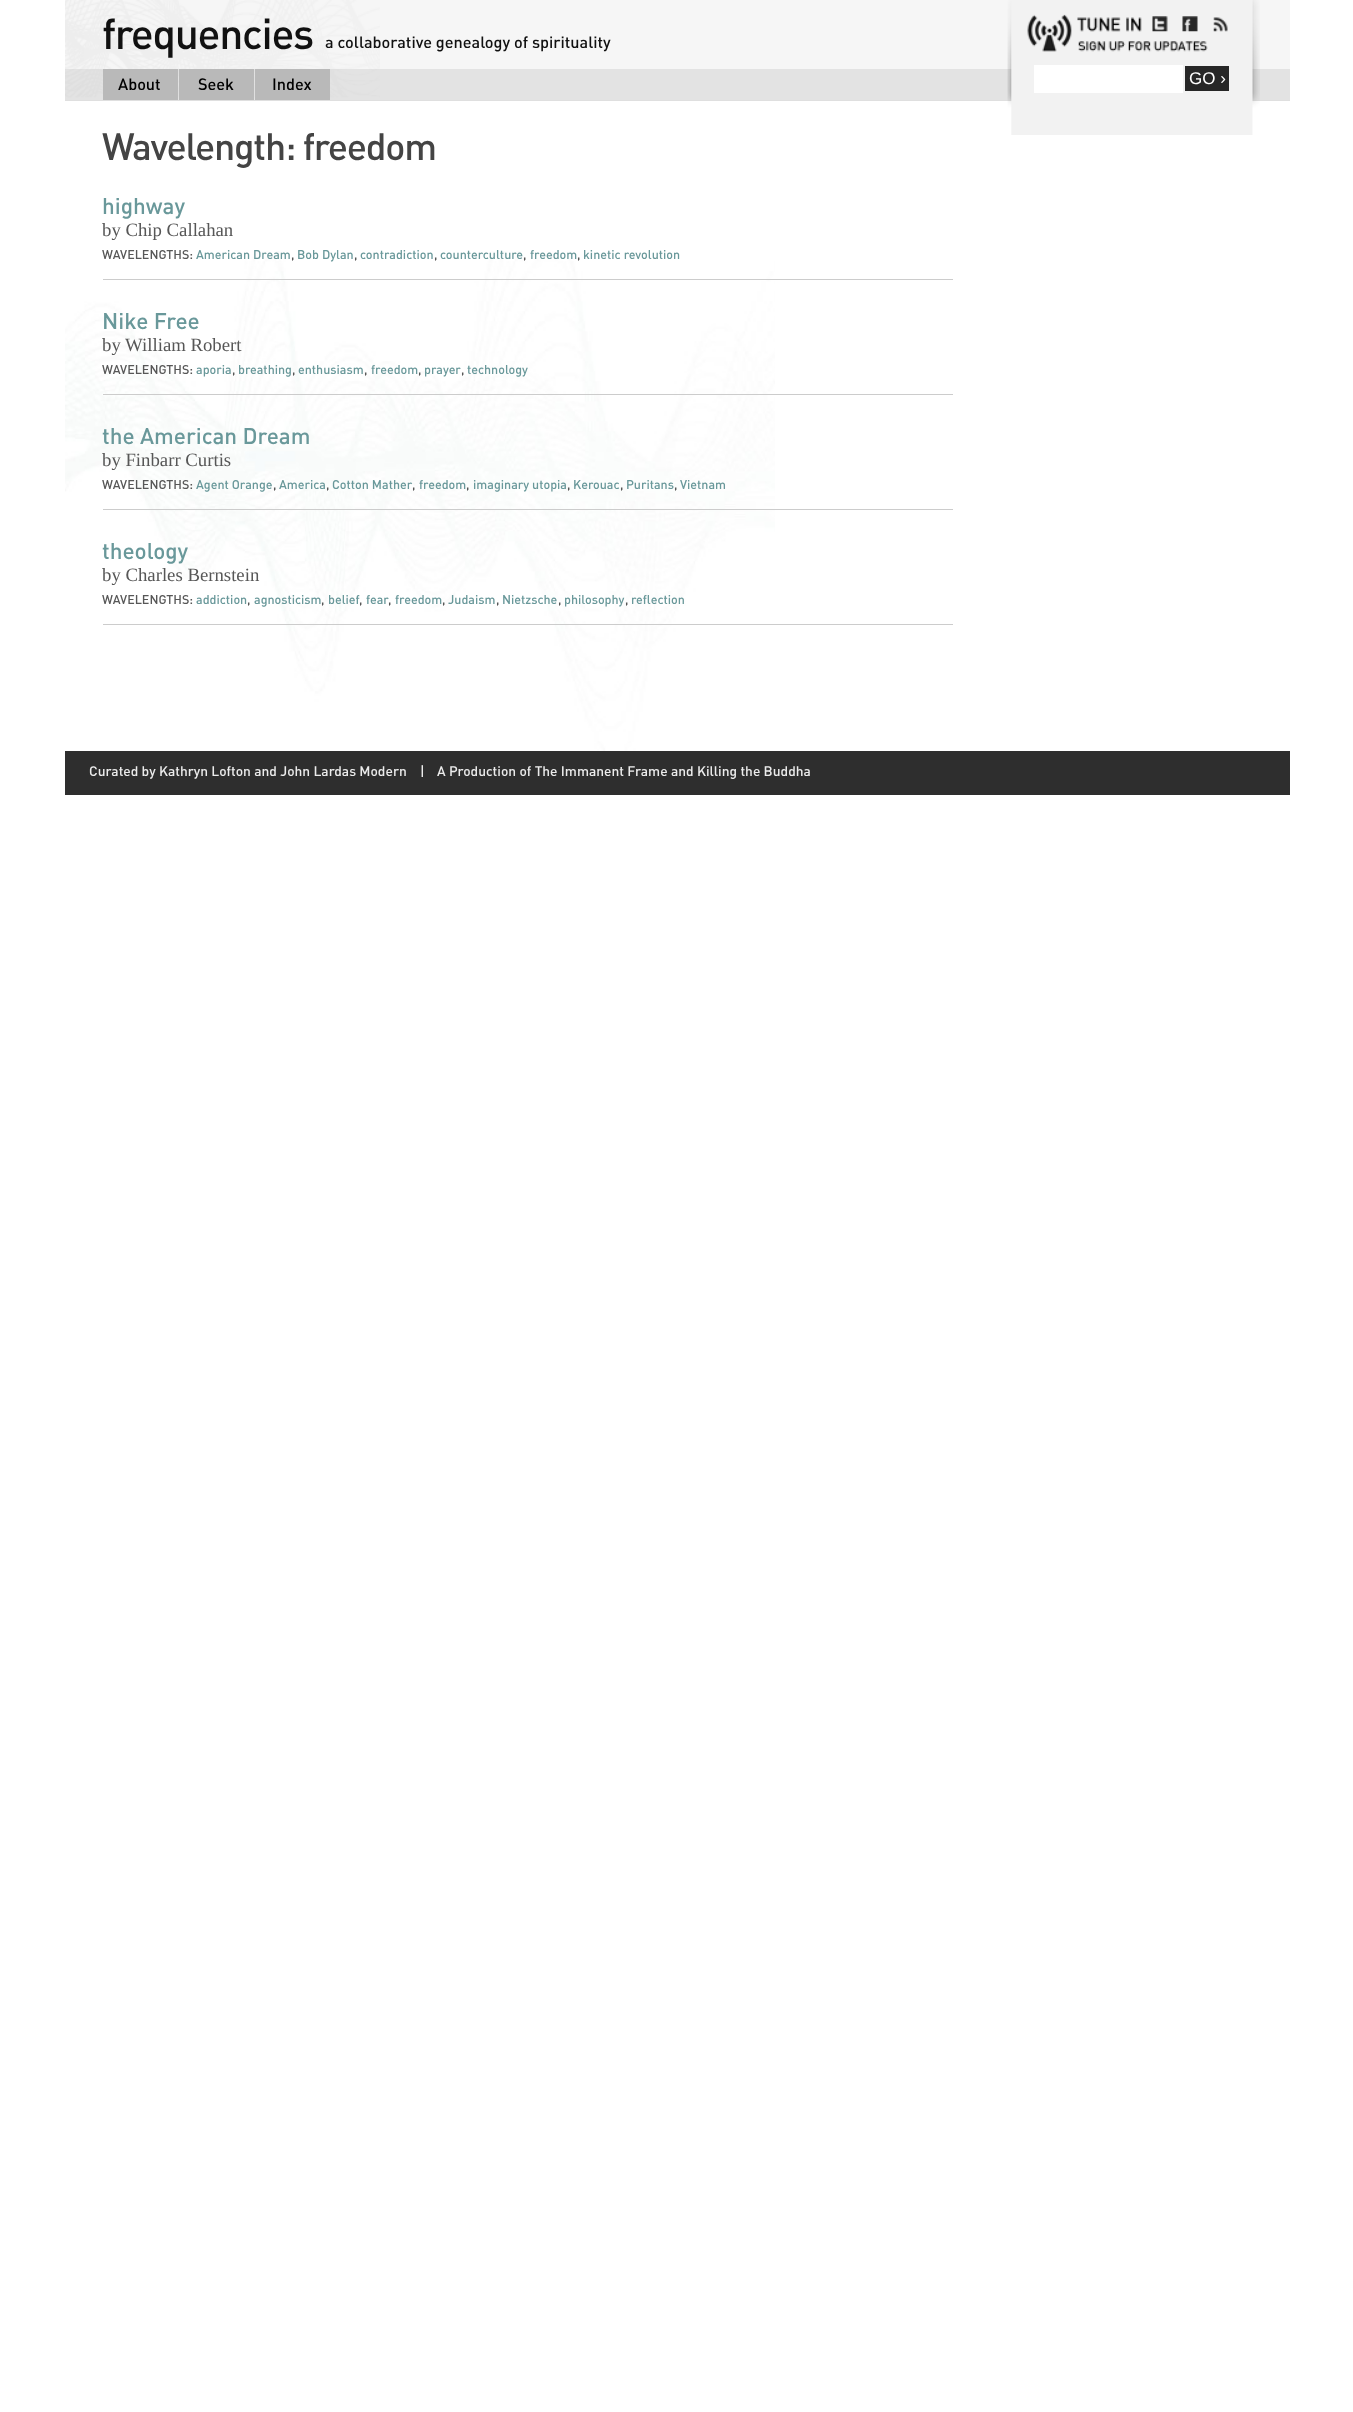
(async () => {
  const canvas = document.querySelector("canvas");
  canvas.width = 1353;
  canvas.height = 2412;
  const ctx = canvas.getContext("2d");
  ctx.miterLimit = 4;
  ctx.fontKerning = "normal";
  async function loadImage(src) {
    const img = new Image();
    img.src = src;
    await img.decode();
    return img;
  }

  ctx.fillStyle = "#ffffff";
  ctx.fillRect(0, 0, 1353, 2412);
  ctx.fillStyle = "#f6f6f6";
  ctx.fillRect(65, 0, 1225, 100);
  ctx.drawImage(await loadImage("img/1.png"), 65, 0, 315, 98);
  for (const [x, y, w, h, color] of [
    [65, 100, 1225, 1, "#dfdfdf"],
    [65, 69, 1225, 31, "rgba(200, 200, 200, 0.4)"],
    [103, 69, 75, 31, "#b9b9b9"],
    [179, 69, 75, 31, "#b9b9b9"],
    [255, 69, 75, 31, "#b9b9b9"],
  ]) {
    ctx.fillStyle = color;
    ctx.fillRect(x, y, w, h);
  }
  ctx.drawImage(await loadImage("img/2.png"), 1007, 0, 253, 135);
  ctx.drawImage(await loadImage("img/3.png"), 1152, 16, 16, 16);
  ctx.drawImage(await loadImage("img/4.png"), 1182, 16, 16, 16);
  ctx.drawImage(await loadImage("img/5.png"), 1213, 17, 15, 15);
  ctx.fillStyle = "#ffffff";
  ctx.fillRect(1034, 65, 149, 28);
  ctx.fillStyle = "#272727";
  ctx.fillRect(1185, 66, 44, 25);
  ctx.drawImage(await loadImage("img/6.png"), 65, 251, 710, 500);
  for (const [x, y, w, h, color] of [
    [103, 279, 850, 1, "#cccccc"],
    [103, 394, 850, 1, "#cccccc"],
    [103, 509, 850, 1, "#cccccc"],
    [103, 624, 850, 1, "#cccccc"],
    [65, 751, 1225, 44, "#2e2e2e"],
  ]) {
    ctx.fillStyle = color;
    ctx.fillRect(x, y, w, h);
  }
  ctx.letterSpacing = "-1.25px";
  ctx.font = "500 42.5px DIN";
  ctx.fillStyle = "#111111";
  ctx.fillText("frequencies", 102, 49);
  ctx.letterSpacing = "0px";
  ctx.font = "500 16.25px DIN";
  ctx.fillText("a collaborative genealogy of spirituality", 325, 48);
  ctx.fillStyle = "#000000";
  for (const [text, x, y] of [
    ["About", 118, 90],
    ["Seek", 198, 90],
    ["Index", 272, 90],
  ]) {
    ctx.fillText(text, x, y);
  }
  ctx.font = "17px Liberation Sans";
  ctx.fillStyle = "#ffffff";
  ctx.fillText("GO ›", 1189, 84);
  ctx.letterSpacing = "-1.25px";
  ctx.font = "500 37.5px DIN";
  ctx.fillStyle = "#444444";
  ctx.fillText("Wavelength: freedom", 102, 160);
  ctx.letterSpacing = "0px";
  ctx.font = "500 22.5px DIN";
  ctx.fillStyle = "#69989a";
  ctx.fillText("highway", 102, 214);
  ctx.font = "18.75px Liberation Serif";
  ctx.fillStyle = "#575757";
  ctx.fillText("by Chip Callahan", 102, 236);
  ctx.font = "500 12.5px DIN";
  ctx.fillText("WAVELENGTHS:", 102, 259);
  ctx.fillStyle = "#69989a";
  ctx.fillText("American Dream", 196, 259);
  ctx.fillStyle = "#575757";
  ctx.fillText(",", 291, 259);
  ctx.fillStyle = "#69989a";
  ctx.fillText("Bob Dylan", 297, 259);
  ctx.fillStyle = "#575757";
  ctx.fillText(",", 354, 259);
  ctx.fillStyle = "#69989a";
  ctx.fillText("contradiction", 360, 259);
  ctx.fillStyle = "#575757";
  ctx.fillText(",", 434, 259);
  ctx.fillStyle = "#69989a";
  ctx.fillText("counterculture", 440, 259);
  ctx.fillStyle = "#575757";
  ctx.fillText(",", 523, 259);
  ctx.fillStyle = "#69989a";
  ctx.fillText("freedom", 530, 259);
  ctx.fillStyle = "#575757";
  ctx.fillText(",", 577, 259);
  ctx.fillStyle = "#69989a";
  ctx.fillText("kinetic revolution", 583, 259);
  ctx.font = "500 22.5px DIN";
  ctx.fillText("Nike Free", 102, 329);
  ctx.font = "18.75px Liberation Serif";
  ctx.fillStyle = "#575757";
  ctx.fillText("by William Robert", 102, 351);
  ctx.font = "500 12.5px DIN";
  ctx.fillText("WAVELENGTHS:", 102, 374);
  ctx.fillStyle = "#69989a";
  ctx.fillText("aporia", 196, 374);
  ctx.fillStyle = "#575757";
  ctx.fillText(",", 232, 374);
  ctx.fillStyle = "#69989a";
  ctx.fillText("breathing", 238, 374);
  ctx.fillStyle = "#575757";
  ctx.fillText(",", 292, 374);
  ctx.fillStyle = "#69989a";
  ctx.fillText("enthusiasm", 298, 374);
  ctx.fillStyle = "#575757";
  ctx.fillText(",", 364, 374);
  ctx.fillStyle = "#69989a";
  ctx.fillText("freedom", 371, 374);
  ctx.fillStyle = "#575757";
  ctx.fillText(",", 418, 374);
  ctx.fillStyle = "#69989a";
  ctx.fillText("prayer", 424, 374);
  ctx.fillStyle = "#575757";
  ctx.fillText(",", 461, 374);
  ctx.fillStyle = "#69989a";
  ctx.fillText("technology", 467, 374);
  ctx.font = "500 22.5px DIN";
  ctx.fillText("the American Dream", 102, 444);
  ctx.font = "18.75px Liberation Serif";
  ctx.fillStyle = "#575757";
  ctx.fillText("by Finbarr Curtis", 102, 466);
  ctx.font = "500 12.5px DIN";
  ctx.fillText("WAVELENGTHS:", 102, 489);
  ctx.fillStyle = "#69989a";
  ctx.fillText("Agent Orange", 196, 489);
  ctx.fillStyle = "#575757";
  ctx.fillText(",", 273, 489);
  ctx.fillStyle = "#69989a";
  ctx.fillText("America", 279, 489);
  ctx.fillStyle = "#575757";
  ctx.fillText(",", 326, 489);
  ctx.fillStyle = "#69989a";
  ctx.fillText("Cotton Mather", 332, 489);
  ctx.fillStyle = "#575757";
  ctx.fillText(",", 412, 489);
  ctx.fillStyle = "#69989a";
  ctx.fillText("freedom", 419, 489);
  ctx.fillStyle = "#575757";
  ctx.fillText(",", 466, 489);
  ctx.fillStyle = "#69989a";
  ctx.fillText("imaginary utopia", 473, 489);
  ctx.fillStyle = "#575757";
  ctx.fillText(",", 567, 489);
  ctx.fillStyle = "#69989a";
  ctx.fillText("Kerouac", 573, 489);
  ctx.fillStyle = "#575757";
  ctx.fillText(",", 620, 489);
  ctx.fillStyle = "#69989a";
  ctx.fillText("Puritans", 626, 489);
  ctx.fillStyle = "#575757";
  ctx.fillText(",", 674, 489);
  ctx.fillStyle = "#69989a";
  ctx.fillText("Vietnam", 680, 489);
  ctx.font = "500 22.5px DIN";
  ctx.fillText("theology", 102, 559);
  ctx.font = "18.75px Liberation Serif";
  ctx.fillStyle = "#575757";
  ctx.fillText("by Charles Bernstein", 102, 581);
  ctx.font = "500 12.5px DIN";
  ctx.fillText("WAVELENGTHS:", 102, 604);
  ctx.fillStyle = "#69989a";
  ctx.fillText("addiction", 196, 604);
  ctx.fillStyle = "#575757";
  ctx.fillText(",", 247, 604);
  ctx.fillStyle = "#69989a";
  ctx.fillText("agnosticism", 254, 604);
  ctx.fillStyle = "#575757";
  ctx.fillText(",", 321, 604);
  ctx.fillStyle = "#69989a";
  ctx.fillText("belief", 328, 604);
  ctx.fillStyle = "#575757";
  ctx.fillText(",", 359, 604);
  ctx.fillStyle = "#69989a";
  ctx.fillText("fear", 366, 604);
  ctx.fillStyle = "#575757";
  ctx.fillText(",", 388, 604);
  ctx.fillStyle = "#69989a";
  ctx.fillText("freedom", 395, 604);
  ctx.fillStyle = "#575757";
  ctx.fillText(",", 442, 604);
  ctx.fillStyle = "#69989a";
  ctx.fillText("Judaism", 448, 604);
  ctx.fillStyle = "#575757";
  ctx.fillText(",", 496, 604);
  ctx.fillStyle = "#69989a";
  ctx.fillText("Nietzsche", 502, 604);
  ctx.fillStyle = "#575757";
  ctx.fillText(",", 558, 604);
  ctx.fillStyle = "#69989a";
  ctx.fillText("philosophy", 564, 604);
  ctx.fillStyle = "#575757";
  ctx.fillText(",", 625, 604);
  ctx.fillStyle = "#69989a";
  ctx.fillText("reflection", 631, 604);
  ctx.font = "500 13.75px DIN";
  ctx.fillStyle = "#ececec";
  for (const [text, x, y] of [
    ["Curated by Kathryn Lofton and John Lardas Modern", 89, 776],
    ["|", 420, 776],
    ["A Production of The Immanent Frame and Killing the Buddha", 437, 776],
  ]) {
    ctx.fillText(text, x, y);
  }
})();
